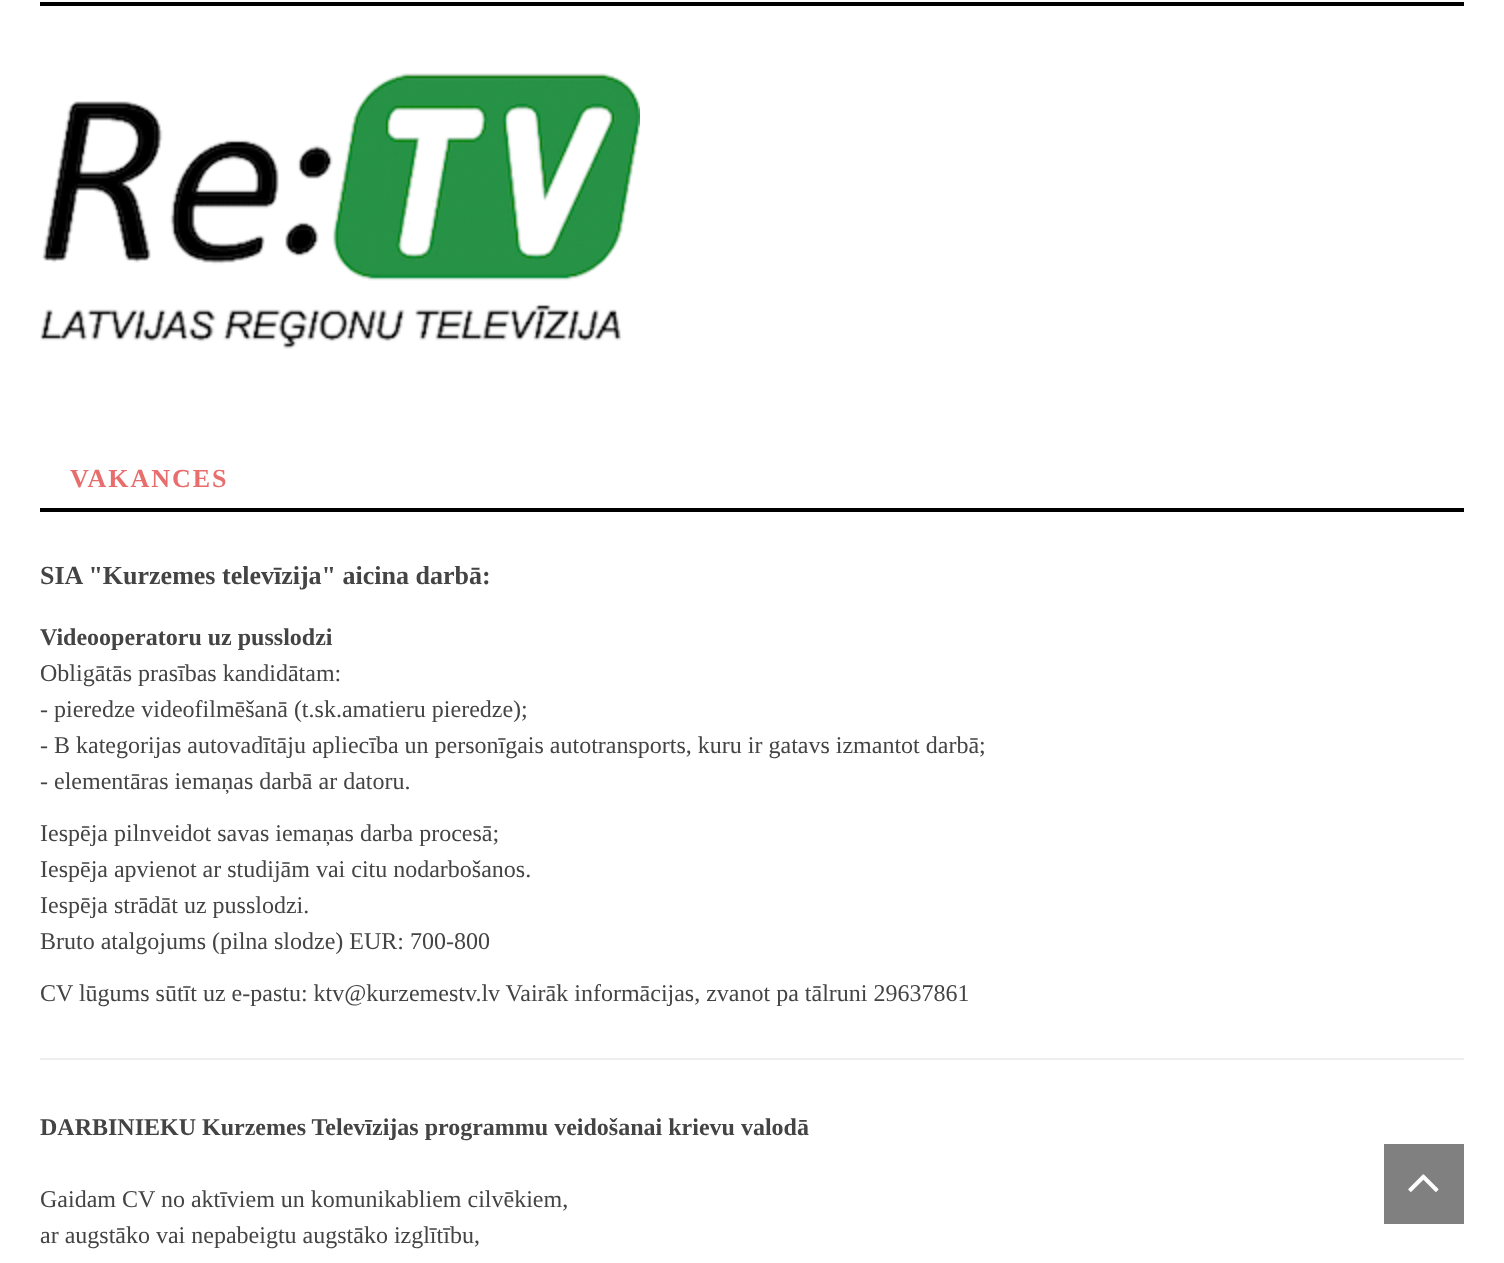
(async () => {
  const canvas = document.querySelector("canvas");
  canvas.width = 1504;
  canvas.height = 1263;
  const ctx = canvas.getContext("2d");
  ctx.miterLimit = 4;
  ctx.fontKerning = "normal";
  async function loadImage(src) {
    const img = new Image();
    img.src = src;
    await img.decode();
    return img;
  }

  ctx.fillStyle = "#ffffff";
  ctx.fillRect(0, 0, 1504, 1263);
  ctx.fillStyle = "#000000";
  ctx.fillRect(40, 2, 1424, 4);
  ctx.drawImage(await loadImage("img/1.png"), 40, 73, 600, 276);
  for (const [x, y, w, h, color] of [
    [40, 508, 1424, 4, "#000000"],
    [40, 1058, 1424, 2, "#eeeeee"],
    [1384, 1144, 80, 80, "#808080"],
  ]) {
    ctx.fillStyle = color;
    ctx.fillRect(x, y, w, h);
  }
  ctx.drawImage(await loadImage("img/2.png"), 1408, 1174, 31, 18);
  ctx.letterSpacing = "2px";
  ctx.font = "bold 26px Liberation Serif";
  ctx.fillStyle = "#e86d6d";
  ctx.fillText("VAKANCES", 70, 487);
  ctx.letterSpacing = "0px";
  ctx.fillStyle = "#444444";
  ctx.fillText("SIA \"Kurzemes televīzija\" aicina darbā:", 40, 584);
  ctx.font = "bold 24px Liberation Serif";
  ctx.fillText("Videooperatoru uz pusslodzi", 40, 645);
  ctx.font = "24px Liberation Serif";
  for (const [text, x, y] of [
    ["Obligātās prasības kandidātam:", 40, 681],
    ["- pieredze videofilmēšanā (t.sk.amatieru pieredze);", 40, 717],
    ["- B kategorijas autovadītāju apliecība un personīgais autotransports, kuru ir gatavs izmantot darbā;", 40, 753],
    ["- elementāras iemaņas darbā ar datoru.", 40, 789],
    ["Iespēja pilnveidot savas iemaņas darba procesā;", 40, 841],
    ["Iespēja apvienot ar studijām vai citu nodarbošanos.", 40, 877],
    ["Iespēja strādāt uz pusslodzi.", 40, 913],
    ["Bruto atalgojums (pilna slodze) EUR: 700-800", 40, 949],
    ["CV lūgums sūtīt uz e-pastu: ktv@kurzemestv.lv Vairāk informācijas, zvanot pa tālruni 29637861", 40, 1001],
  ]) {
    ctx.fillText(text, x, y);
  }
  ctx.font = "bold 24px Liberation Serif";
  ctx.fillText("DARBINIEKU Kurzemes Televīzijas programmu veidošanai krievu valodā", 40, 1135);
  ctx.font = "24px Liberation Serif";
  ctx.fillText("Gaidam CV no aktīviem un komunikabliem cilvēkiem,", 40, 1207);
  ctx.fillText("ar augstāko vai nepabeigtu augstāko izglītību,", 40, 1243);
})();
